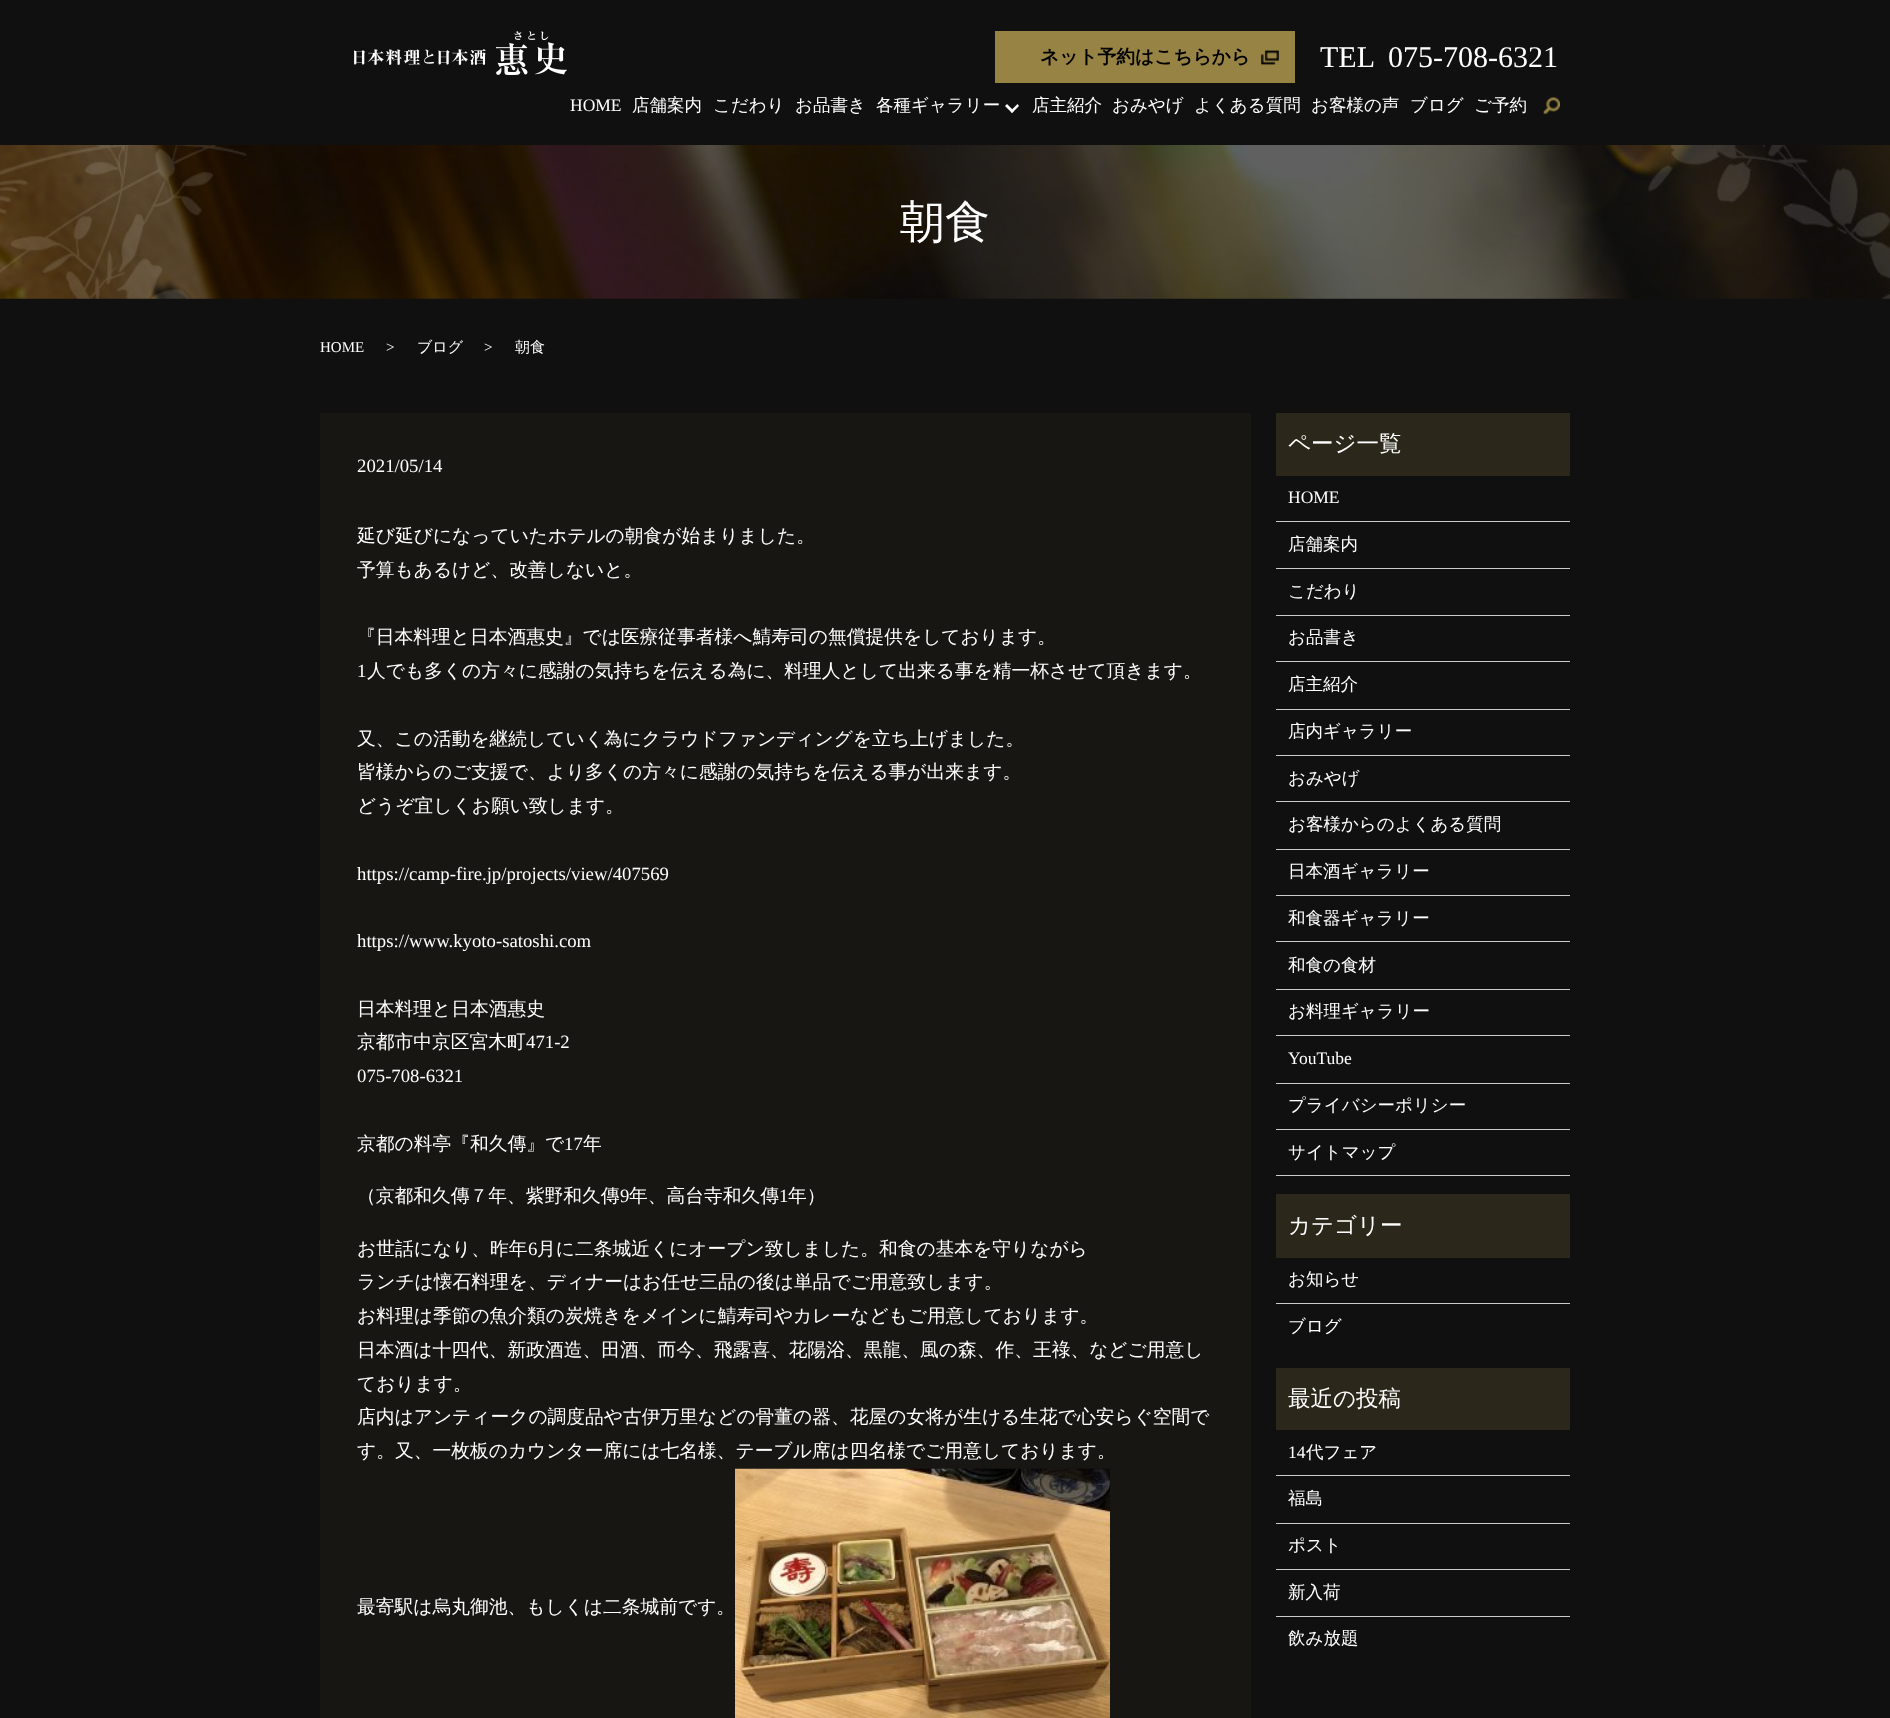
(async () => {
  const canvas = document.querySelector("canvas");
  canvas.width = 1890;
  canvas.height = 1718;
  const ctx = canvas.getContext("2d");
  ctx.miterLimit = 4;
  ctx.fontKerning = "normal";
  async function loadImage(src) {
    const img = new Image();
    img.src = src;
    await img.decode();
    return img;
  }
  let path;

  ctx.fillStyle = "#101010";
  ctx.fillRect(0, 0, 1890, 1718);
  ctx.drawImage(await loadImage("img/1.png"), 354, 31, 213, 44);
  ctx.fillStyle = "#978444";
  ctx.fillRect(995, 31, 300, 52);
  ctx.drawImage(await loadImage("img/2.png"), 1261, 50, 18, 15);
  ctx.fillStyle = "#ffffff";
  path = new Path2D("M1019 106L1012 113L1010.5 111L1017.5 104Z");
  ctx.fill(path);
  path = new Path2D("M1014 111L1012 113L1005 106L1007 104Z");
  ctx.fill(path);
  ctx.drawImage(await loadImage("img/3.png"), 1543, 97, 17, 17);
  ctx.drawImage(await loadImage("img/4.png"), 0, 145, 1890, 154);
  ctx.fillStyle = "#171613";
  ctx.fillRect(320, 413, 931, 1305);
  ctx.drawImage(await loadImage("img/5.png"), 735, 1468, 375, 250);
  for (const [x, y, w, h, color] of [
    [1276, 413, 294, 63, "#2b271a"],
    [1276, 521, 294, 1, "#cccccc"],
    [1276, 568, 294, 1, "#cccccc"],
    [1276, 615, 294, 1, "#cccccc"],
    [1276, 661, 294, 1, "#cccccc"],
    [1276, 709, 294, 1, "#cccccc"],
    [1276, 755, 294, 1, "#cccccc"],
    [1276, 801, 294, 1, "#cccccc"],
    [1276, 849, 294, 1, "#cccccc"],
    [1276, 895, 294, 1, "#cccccc"],
    [1276, 941, 294, 1, "#cccccc"],
    [1276, 989, 294, 1, "#cccccc"],
    [1276, 1035, 294, 1, "#cccccc"],
    [1276, 1083, 294, 1, "#cccccc"],
    [1276, 1129, 294, 1, "#cccccc"],
    [1276, 1175, 294, 1, "#cccccc"],
    [1276, 1194, 294, 64, "#2b271a"],
    [1276, 1303, 294, 1, "#cccccc"],
    [1276, 1368, 294, 62, "#2b271a"],
    [1276, 1475, 294, 1, "#cccccc"],
    [1276, 1523, 294, 1, "#cccccc"],
    [1276, 1569, 294, 1, "#cccccc"],
    [1276, 1616, 294, 1, "#cccccc"],
  ]) {
    ctx.fillStyle = color;
    ctx.fillRect(x, y, w, h);
  }
  ctx.font = "bold 18.75px WenQuanYi Zen Hei";
  ctx.fillStyle = "#000000";
  ctx.fillText("ネット予約はこちらから", 1040, 63);
  ctx.font = "30px Liberation Serif";
  ctx.fillStyle = "#ffffff";
  ctx.fillText("TEL", 1320, 67);
  ctx.fillText("075-708-6321", 1388, 67);
  ctx.font = "17.5px Liberation Serif";
  ctx.fillText("HOME", 570, 111);
  ctx.font = "500 17.5px WenQuanYi Zen Hei";
  for (const [text, x, y] of [
    ["店舗案内", 632, 111],
    ["こだわり", 713, 111],
    ["お品書き", 795, 111],
    ["各種ギャラリー", 876, 111],
    ["店主紹介", 1032, 111],
    ["おみやげ", 1112, 111],
    ["よくある質問", 1194, 111],
    ["お客様の声", 1311, 111],
    ["ブログ", 1410, 111],
    ["ご予約", 1474, 111],
  ]) {
    ctx.fillText(text, x, y);
  }
  ctx.font = "500 45px WenQuanYi Zen Hei";
  ctx.fillText("朝食", 900, 237);
  ctx.font = "15px Liberation Serif";
  ctx.fillText("HOME", 320, 352);
  ctx.fillText(">", 386, 352);
  ctx.font = "500 15px WenQuanYi Zen Hei";
  ctx.fillText("ブログ", 417, 352);
  ctx.font = "15px Liberation Serif";
  ctx.fillText(">", 484, 352);
  ctx.font = "500 15px WenQuanYi Zen Hei";
  ctx.fillText("朝食", 515, 352);
  ctx.font = "18.75px Liberation Serif";
  ctx.fillText("2021/05/14", 357, 472);
  ctx.font = "500 18.75px WenQuanYi Zen Hei";
  for (const [text, x, y] of [
    ["延び延びになっていたホテルの朝食が始まりました。", 357, 542],
    ["予算もあるけど、改善しないと。", 357, 576],
    ["『日本料理と日本酒惠史』では医療従事者様へ鯖寿司の無償提供をしております。", 357, 643],
  ]) {
    ctx.fillText(text, x, y);
  }
  ctx.font = "18.75px Liberation Serif";
  ctx.fillText("1", 357, 677);
  ctx.font = "500 18.75px WenQuanYi Zen Hei";
  for (const [text, x, y] of [
    ["人でも多くの方々に感謝の気持ちを伝える為に、料理人として出来る事を精一杯させて頂きます。", 367, 677],
    ["又、この活動を継続していく為にクラウドファンディングを立ち上げました。", 357, 745],
    ["皆様からのご支援で、より多くの方々に感謝の気持ちを伝える事が出来ます。", 357, 778],
    ["どうぞ宜しくお願い致します。", 357, 812],
  ]) {
    ctx.fillText(text, x, y);
  }
  ctx.font = "18.75px Liberation Serif";
  ctx.fillText("https://camp-fire.jp/projects/view/407569", 357, 880);
  ctx.fillText("https://www.kyoto-satoshi.com", 357, 947);
  ctx.font = "500 18.75px WenQuanYi Zen Hei";
  ctx.fillText("日本料理と日本酒惠史", 357, 1015);
  ctx.fillText("京都市中京区宮木町", 357, 1048);
  ctx.font = "18.75px Liberation Serif";
  ctx.fillText("471-2", 526, 1048);
  ctx.fillText("075-708-6321", 357, 1082);
  ctx.font = "500 18.75px WenQuanYi Zen Hei";
  ctx.fillText("京都の料亭『和久傳』で", 357, 1150);
  ctx.font = "18.75px Liberation Serif";
  ctx.fillText("17", 564, 1150);
  ctx.font = "500 18.75px WenQuanYi Zen Hei";
  ctx.fillText("年", 583, 1150);
  ctx.fillText("（京都和久傳７年、紫野和久傳", 357, 1202);
  ctx.font = "18.75px Liberation Serif";
  ctx.fillText("9", 620, 1202);
  ctx.font = "500 18.75px WenQuanYi Zen Hei";
  ctx.fillText("年、高台寺和久傳", 629, 1202);
  ctx.font = "18.75px Liberation Serif";
  ctx.fillText("1", 779, 1202);
  ctx.font = "500 18.75px WenQuanYi Zen Hei";
  ctx.fillText("年）", 788, 1202);
  ctx.fillText("お世話になり、昨年", 357, 1255);
  ctx.font = "18.75px Liberation Serif";
  ctx.fillText("6", 528, 1255);
  ctx.font = "500 18.75px WenQuanYi Zen Hei";
  for (const [text, x, y] of [
    ["月に二条城近くにオープン致しました。和食の基本を守りながら", 537, 1255],
    ["ランチは懐石料理を、ディナーはお任せ三品の後は単品でご用意致します。", 357, 1288],
    ["お料理は季節の魚介類の炭焼きをメインに鯖寿司やカレーなどもご用意しております。", 357, 1322],
    ["日本酒は十四代、新政酒造、田酒、而今、飛露喜、花陽浴、黒龍、風の森、作、王祿、などご用意し", 357, 1356],
    ["ております。", 357, 1390],
    ["店内はアンティークの調度品や古伊万里などの骨董の器、花屋の女将が生ける生花で心安らぐ空間で", 357, 1423],
    ["す。又、一枚板のカウンター席には七名様、テーブル席は四名様でご用意しております。", 357, 1457],
    ["最寄駅は烏丸御池、もしくは二条城前です。", 357, 1613],
  ]) {
    ctx.fillText(text, x, y);
  }
  ctx.font = "500 22.5px WenQuanYi Zen Hei";
  ctx.fillText("ページ一覧", 1288, 451);
  ctx.font = "17.5px Liberation Serif";
  ctx.fillText("HOME", 1288, 503);
  ctx.font = "500 17.5px WenQuanYi Zen Hei";
  for (const [text, x, y] of [
    ["店舗案内", 1288, 550],
    ["こだわり", 1288, 597],
    ["お品書き", 1288, 643],
    ["店主紹介", 1288, 690],
    ["店内ギャラリー", 1288, 737],
    ["おみやげ", 1288, 784],
    ["お客様からのよくある質問", 1288, 830],
    ["日本酒ギャラリー", 1288, 877],
    ["和食器ギャラリー", 1288, 924],
    ["和食の食材", 1288, 971],
    ["お料理ギャラリー", 1288, 1017],
  ]) {
    ctx.fillText(text, x, y);
  }
  ctx.font = "17.5px Liberation Serif";
  ctx.fillText("YouTube", 1288, 1064);
  ctx.font = "500 17.5px WenQuanYi Zen Hei";
  ctx.fillText("プライバシーポリシー", 1288, 1111);
  ctx.fillText("サイトマップ", 1288, 1158);
  ctx.font = "500 22.5px WenQuanYi Zen Hei";
  ctx.fillText("カテゴリー", 1288, 1233);
  ctx.font = "500 17.5px WenQuanYi Zen Hei";
  ctx.fillText("お知らせ", 1288, 1285);
  ctx.fillText("ブログ", 1288, 1332);
  ctx.font = "500 22.5px WenQuanYi Zen Hei";
  ctx.fillText("最近の投稿", 1288, 1406);
  ctx.font = "17.5px Liberation Serif";
  ctx.fillText("14", 1288, 1458);
  ctx.font = "500 17.5px WenQuanYi Zen Hei";
  for (const [text, x, y] of [
    ["代フェア", 1306, 1458],
    ["福島", 1288, 1504],
    ["ポスト", 1288, 1551],
    ["新入荷", 1288, 1598],
    ["飲み放題", 1288, 1644],
  ]) {
    ctx.fillText(text, x, y);
  }
})();
